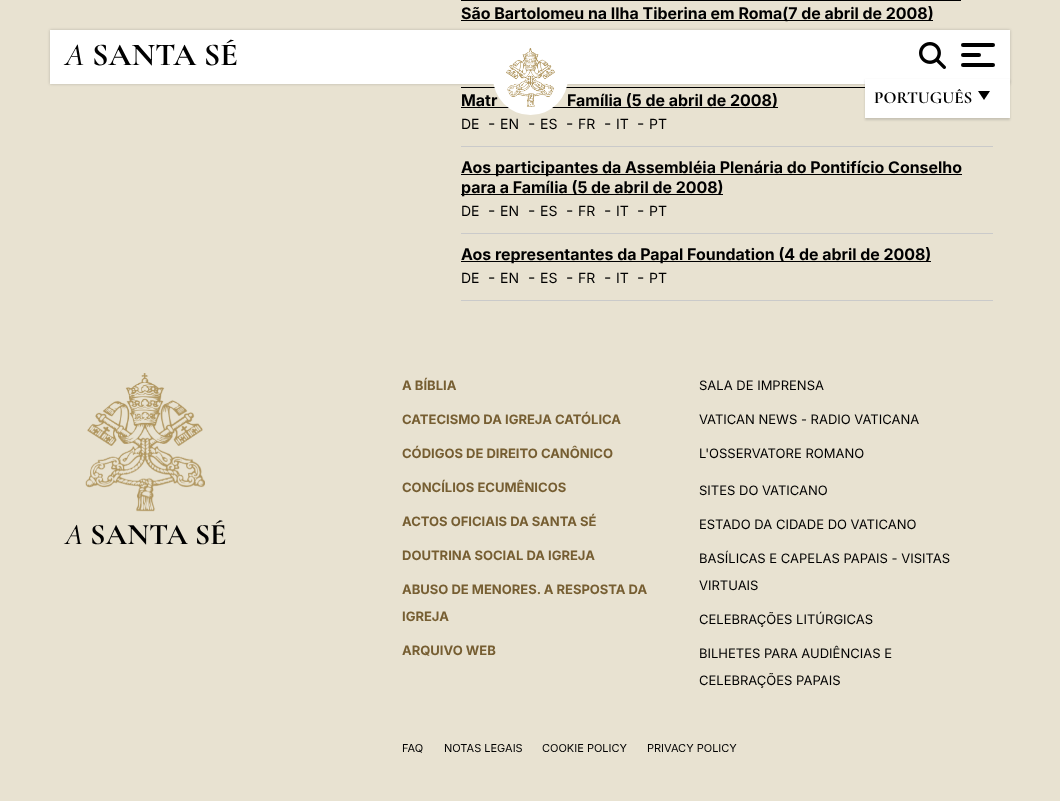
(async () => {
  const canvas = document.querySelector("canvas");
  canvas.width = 1060;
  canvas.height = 801;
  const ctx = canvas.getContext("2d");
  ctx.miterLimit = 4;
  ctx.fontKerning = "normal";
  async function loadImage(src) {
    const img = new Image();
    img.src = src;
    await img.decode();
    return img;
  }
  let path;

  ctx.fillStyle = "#e8e2d1";
  ctx.fillRect(0, 0, 1060, 801);
  for (const [x, y, w, h, color] of [
    [461, 0, 500, 1, "#000000"],
    [461, 20, 472, 1, "#000000"],
    [461, 146, 532, 1, "#cacaca"],
    [461, 107, 317, 1, "#000000"],
    [461, 87, 404, 1, "#000000"],
    [461, 233, 532, 1, "#cacaca"],
    [461, 174, 501, 1, "#000000"],
    [461, 194, 262, 1, "#000000"],
    [461, 300, 532, 1, "#cacaca"],
    [461, 261, 470, 1, "#000000"],
  ]) {
    ctx.fillStyle = color;
    ctx.fillRect(x, y, w, h);
  }
  ctx.fillStyle = "rgba(73, 73, 73, 0.31)";
  ctx.filter = "blur(1.5px)";
  ctx.beginPath();
  ctx.rect(50, 30, 960, 54);
  ctx.fill();
  ctx.filter = "none";
  ctx.fillStyle = "#ffffff";
  ctx.fillRect(50, 30, 960, 54);
  ctx.drawImage(await loadImage("img/2.png"), 919, 42, 27, 27);
  ctx.fillStyle = "#000000";
  ctx.beginPath();
  ctx.roundRect(961, 43, 34, 4, 2);
  ctx.fill();
  ctx.beginPath();
  ctx.roundRect(961, 53, 20, 4, 2);
  ctx.fill();
  ctx.beginPath();
  ctx.roundRect(961, 63, 34, 4, 2);
  ctx.fill();
  ctx.fillStyle = "rgba(85, 85, 85, 0.23)";
  ctx.filter = "blur(1px)";
  ctx.beginPath();
  ctx.rect(865, 80, 145, 40);
  ctx.fill();
  ctx.filter = "none";
  ctx.fillStyle = "#ffffff";
  ctx.fillRect(865, 79, 145, 39);
  ctx.fillStyle = "#000000";
  path = new Path2D("M978 91H990L984 100Z");
  ctx.fill(path);
  ctx.drawImage(await loadImage("img/3.png"), 85, 373, 120, 139);
  ctx.font = "bold 16px Inter";
  for (const [text, x, y] of [
    ["São Bartolomeu na Ilha Tiberina em Roma(7 de abril de 2008)", 461, 19],
    ["Matr", 461, 106],
    ["Família (5 de abril de 2008)", 567, 106],
  ]) {
    ctx.fillText(text, x, y);
  }
  ctx.font = "14px Inter";
  ctx.fillText("DE", 461, 129);
  ctx.font = "16px 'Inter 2'";
  ctx.fillText("-", 488, 129);
  ctx.font = "14px Inter";
  ctx.fillText("EN", 500, 129);
  ctx.font = "16px 'Inter 2'";
  ctx.fillText("-", 528, 129);
  ctx.font = "14px Inter";
  ctx.fillText("ES", 540, 129);
  ctx.font = "16px 'Inter 2'";
  ctx.fillText("-", 566, 129);
  ctx.font = "14px Inter";
  ctx.fillText("FR", 578, 129);
  ctx.font = "16px 'Inter 2'";
  ctx.fillText("-", 604, 129);
  ctx.font = "14px Inter";
  ctx.fillText("IT", 616, 129);
  ctx.font = "16px 'Inter 2'";
  ctx.fillText("-", 637, 129);
  ctx.font = "14px Inter";
  ctx.fillText("PT", 649, 129);
  ctx.font = "bold 16px Inter";
  ctx.fillText("Aos participantes da Assembléia Plenária do Pontifício Conselho", 461, 173);
  ctx.fillText("para a Família (5 de abril de 2008)", 461, 193);
  ctx.font = "14px Inter";
  ctx.fillText("DE", 461, 216);
  ctx.font = "16px 'Inter 2'";
  ctx.fillText("-", 488, 216);
  ctx.font = "14px Inter";
  ctx.fillText("EN", 500, 216);
  ctx.font = "16px 'Inter 2'";
  ctx.fillText("-", 528, 216);
  ctx.font = "14px Inter";
  ctx.fillText("ES", 540, 216);
  ctx.font = "16px 'Inter 2'";
  ctx.fillText("-", 566, 216);
  ctx.font = "14px Inter";
  ctx.fillText("FR", 578, 216);
  ctx.font = "16px 'Inter 2'";
  ctx.fillText("-", 604, 216);
  ctx.font = "14px Inter";
  ctx.fillText("IT", 616, 216);
  ctx.font = "16px 'Inter 2'";
  ctx.fillText("-", 637, 216);
  ctx.font = "14px Inter";
  ctx.fillText("PT", 649, 216);
  ctx.font = "bold 16px Inter";
  ctx.fillText("Aos representantes da Papal Foundation (4 de abril de 2008)", 461, 260);
  ctx.font = "14px Inter";
  ctx.fillText("DE", 461, 283);
  ctx.font = "16px 'Inter 2'";
  ctx.fillText("-", 488, 283);
  ctx.font = "14px Inter";
  ctx.fillText("EN", 500, 283);
  ctx.font = "16px 'Inter 2'";
  ctx.fillText("-", 528, 283);
  ctx.font = "14px Inter";
  ctx.fillText("ES", 540, 283);
  ctx.font = "16px 'Inter 2'";
  ctx.fillText("-", 566, 283);
  ctx.font = "14px Inter";
  ctx.fillText("FR", 578, 283);
  ctx.font = "16px 'Inter 2'";
  ctx.fillText("-", 604, 283);
  ctx.font = "14px Inter";
  ctx.fillText("IT", 616, 283);
  ctx.font = "16px 'Inter 2'";
  ctx.fillText("-", 637, 283);
  ctx.font = "14px Inter";
  ctx.fillText("PT", 649, 283);
  ctx.font = "italic 500 32px Cormorant Garamond";
  ctx.fillText("A", 65, 65);
  ctx.font = "bold 32px Cormorant Garamond";
  ctx.fillText("SANTA SÉ", 92, 65);
  ctx.fillStyle = "#ffffff";
  ctx.beginPath();
  ctx.arc(530.5, 77.5, 37.5, 0, Math.PI * 2);
  ctx.fill();
  ctx.drawImage(await loadImage("img/1.png"), 506, 48, 49, 59);
  ctx.font = "bold 17px Cormorant Garamond";
  ctx.fillStyle = "#000000";
  ctx.fillText("PORTUGUÊS", 874, 103);
  ctx.font = "italic 500 30px Cormorant Garamond";
  ctx.fillText("A", 65, 544);
  ctx.font = "bold 30px Cormorant Garamond";
  ctx.fillText("SANTA SÉ", 90, 544);
  ctx.font = "bold 13px 'Inter 2'";
  ctx.fillStyle = "#765e32";
  for (const [text, x, y] of [
    ["A BÍBLIA", 402, 390],
    ["CATECISMO DA IGREJA CATÓLICA", 402, 424],
    ["CÓDIGOS DE DIREITO CANÔNICO", 402, 458],
    ["CONCÍLIOS ECUMÊNICOS", 402, 492],
    ["ACTOS OFICIAIS DA SANTA SÉ", 402, 526],
    ["DOUTRINA SOCIAL DA IGREJA", 402, 560],
    ["ABUSO DE MENORES. A RESPOSTA DA", 402, 594],
    ["IGREJA", 402, 621],
    ["ARQUIVO WEB", 402, 655],
  ]) {
    ctx.fillText(text, x, y);
  }
  ctx.font = "13px Inter";
  ctx.fillStyle = "#000000";
  for (const [text, x, y] of [
    ["SALA DE IMPRENSA", 699, 390],
    ["VATICAN NEWS - RADIO VATICANA", 699, 424],
    ["L'OSSERVATORE ROMANO", 699, 458],
    ["SITES DO VATICANO", 699, 495],
    ["ESTADO DA CIDADE DO VATICANO", 699, 529],
    ["BASÍLICAS E CAPELAS PAPAIS - VISITAS", 699, 563],
    ["VIRTUAIS", 699, 590],
    ["CELEBRAÇÕES LITÚRGICAS", 699, 624],
    ["BILHETES PARA AUDIÊNCIAS E", 699, 658],
    ["CELEBRAÇÕES PAPAIS", 699, 685],
  ]) {
    ctx.fillText(text, x, y);
  }
  ctx.font = "11px Inter";
  for (const [text, x, y] of [
    ["FAQ", 402, 752],
    ["NOTAS LEGAIS", 444, 752],
    ["COOKIE POLICY", 542, 752],
    ["PRIVACY POLICY", 647, 752],
  ]) {
    ctx.fillText(text, x, y);
  }
})();
